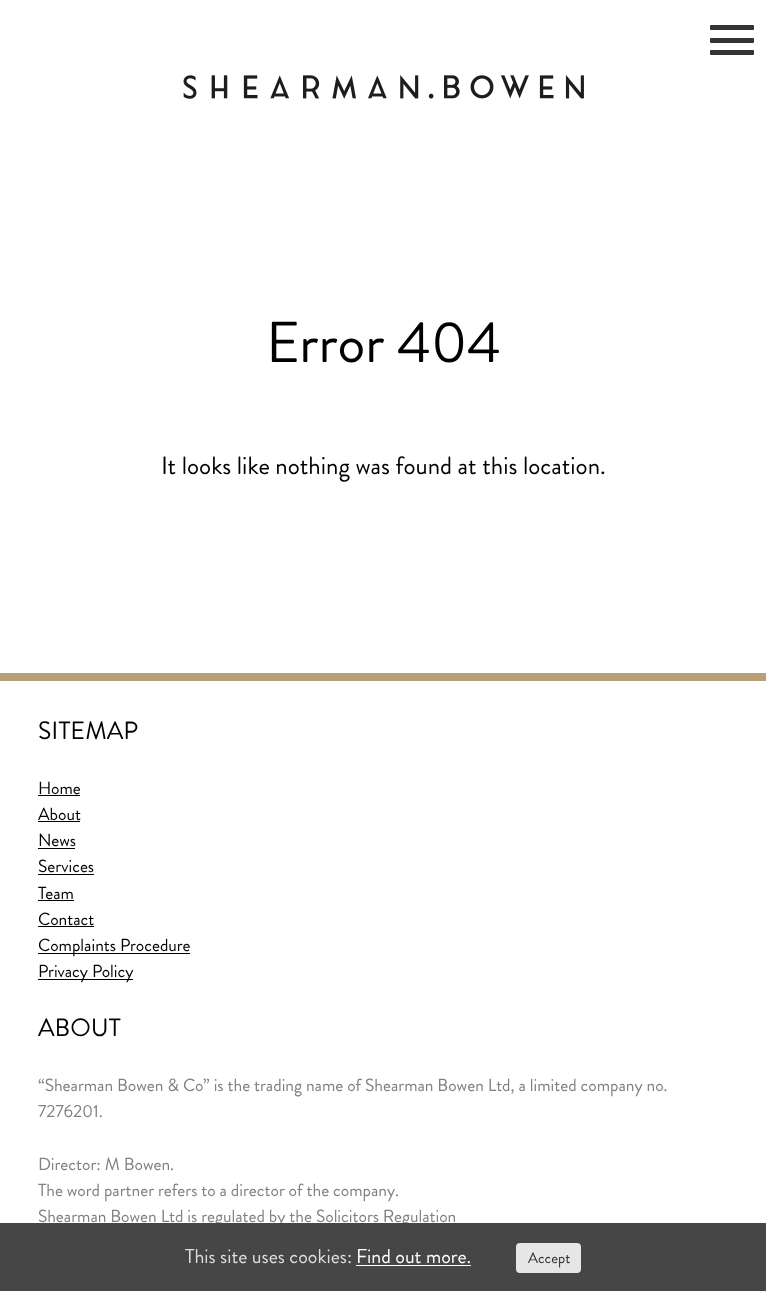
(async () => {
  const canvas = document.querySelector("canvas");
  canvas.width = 766;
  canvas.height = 1291;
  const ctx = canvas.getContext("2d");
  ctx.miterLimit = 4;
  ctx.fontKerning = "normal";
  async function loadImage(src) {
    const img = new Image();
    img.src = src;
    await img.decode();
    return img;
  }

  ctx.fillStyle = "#ffffff";
  ctx.fillRect(0, 0, 766, 1291);
  ctx.fillStyle = "#333333";
  ctx.beginPath();
  ctx.roundRect(710, 25, 44, 5, 1);
  ctx.fill();
  ctx.beginPath();
  ctx.roundRect(710, 38, 44, 5, 1);
  ctx.fill();
  ctx.beginPath();
  ctx.roundRect(710, 50, 44, 5, 1);
  ctx.fill();
  ctx.drawImage(await loadImage("img/1.png"), 183, 75, 401, 24);
  for (const [x, y, w, h, color] of [
    [0, 673, 766, 8, "#b6a176"],
    [38, 795, 42, 1, "#000000"],
    [38, 821, 42, 1, "#000000"],
    [38, 848, 37, 1, "#000000"],
    [38, 874, 56, 1, "#000000"],
    [38, 900, 36, 1, "#000000"],
    [38, 926, 56, 1, "#000000"],
    [38, 953, 152, 1, "#000000"],
    [38, 979, 95, 1, "#000000"],
  ]) {
    ctx.fillStyle = color;
    ctx.fillRect(x, y, w, h);
  }
  ctx.font = "57.5px Brandon Grotesque";
  ctx.fillText("Error 404", 266, 362);
  ctx.font = "25px Brandon Grotesque";
  ctx.fillText("It looks like nothing was found at this location.", 161, 474);
  ctx.fillText("SITEMAP", 38, 739);
  ctx.font = "17.5px Brandon Grotesque";
  for (const [text, x, y] of [
    ["Home", 38, 794],
    ["About", 38, 820],
    ["News", 38, 846],
    ["Services", 38, 872],
    ["Team", 38, 899],
    ["Contact", 38, 925],
    ["Complaints Procedure", 38, 951],
    ["Privacy Policy", 38, 977],
  ]) {
    ctx.fillText(text, x, y);
  }
  ctx.font = "25px Brandon Grotesque";
  ctx.fillText("ABOUT", 38, 1036);
  ctx.font = "17.5px Brandon Grotesque";
  ctx.fillStyle = "#808080";
  for (const [text, x, y] of [
    ["“Shearman Bowen & Co” is the trading name of Shearman Bowen Ltd, a limited company no.", 38, 1091],
    ["7276201.", 38, 1117],
    ["Director: M Bowen.", 38, 1170],
    ["The word partner refers to a director of the company.", 38, 1196],
    ["Shearman Bowen Ltd is regulated by the Solicitors Regulation", 38, 1222],
  ]) {
    ctx.fillText(text, x, y);
  }
  ctx.fillStyle = "#464646";
  ctx.fillRect(0, 1223, 766, 68);
  ctx.font = "20px Brandon Grotesque";
  ctx.fillStyle = "#dddddd";
  ctx.fillText("This site uses cookies:", 185, 1263);
  ctx.fillStyle = "#ffffff";
  ctx.fillText("Find out more.", 356, 1263);
  ctx.fillRect(356, 1265, 115, 1);
  ctx.fillStyle = "#e6e6e6";
  ctx.beginPath();
  ctx.roundRect(516, 1243, 65, 30, 4);
  ctx.fill();
  ctx.font = "15px Brandon Grotesque";
  ctx.fillStyle = "#2e2e2e";
  ctx.fillText("Accept", 528, 1263);
})();
